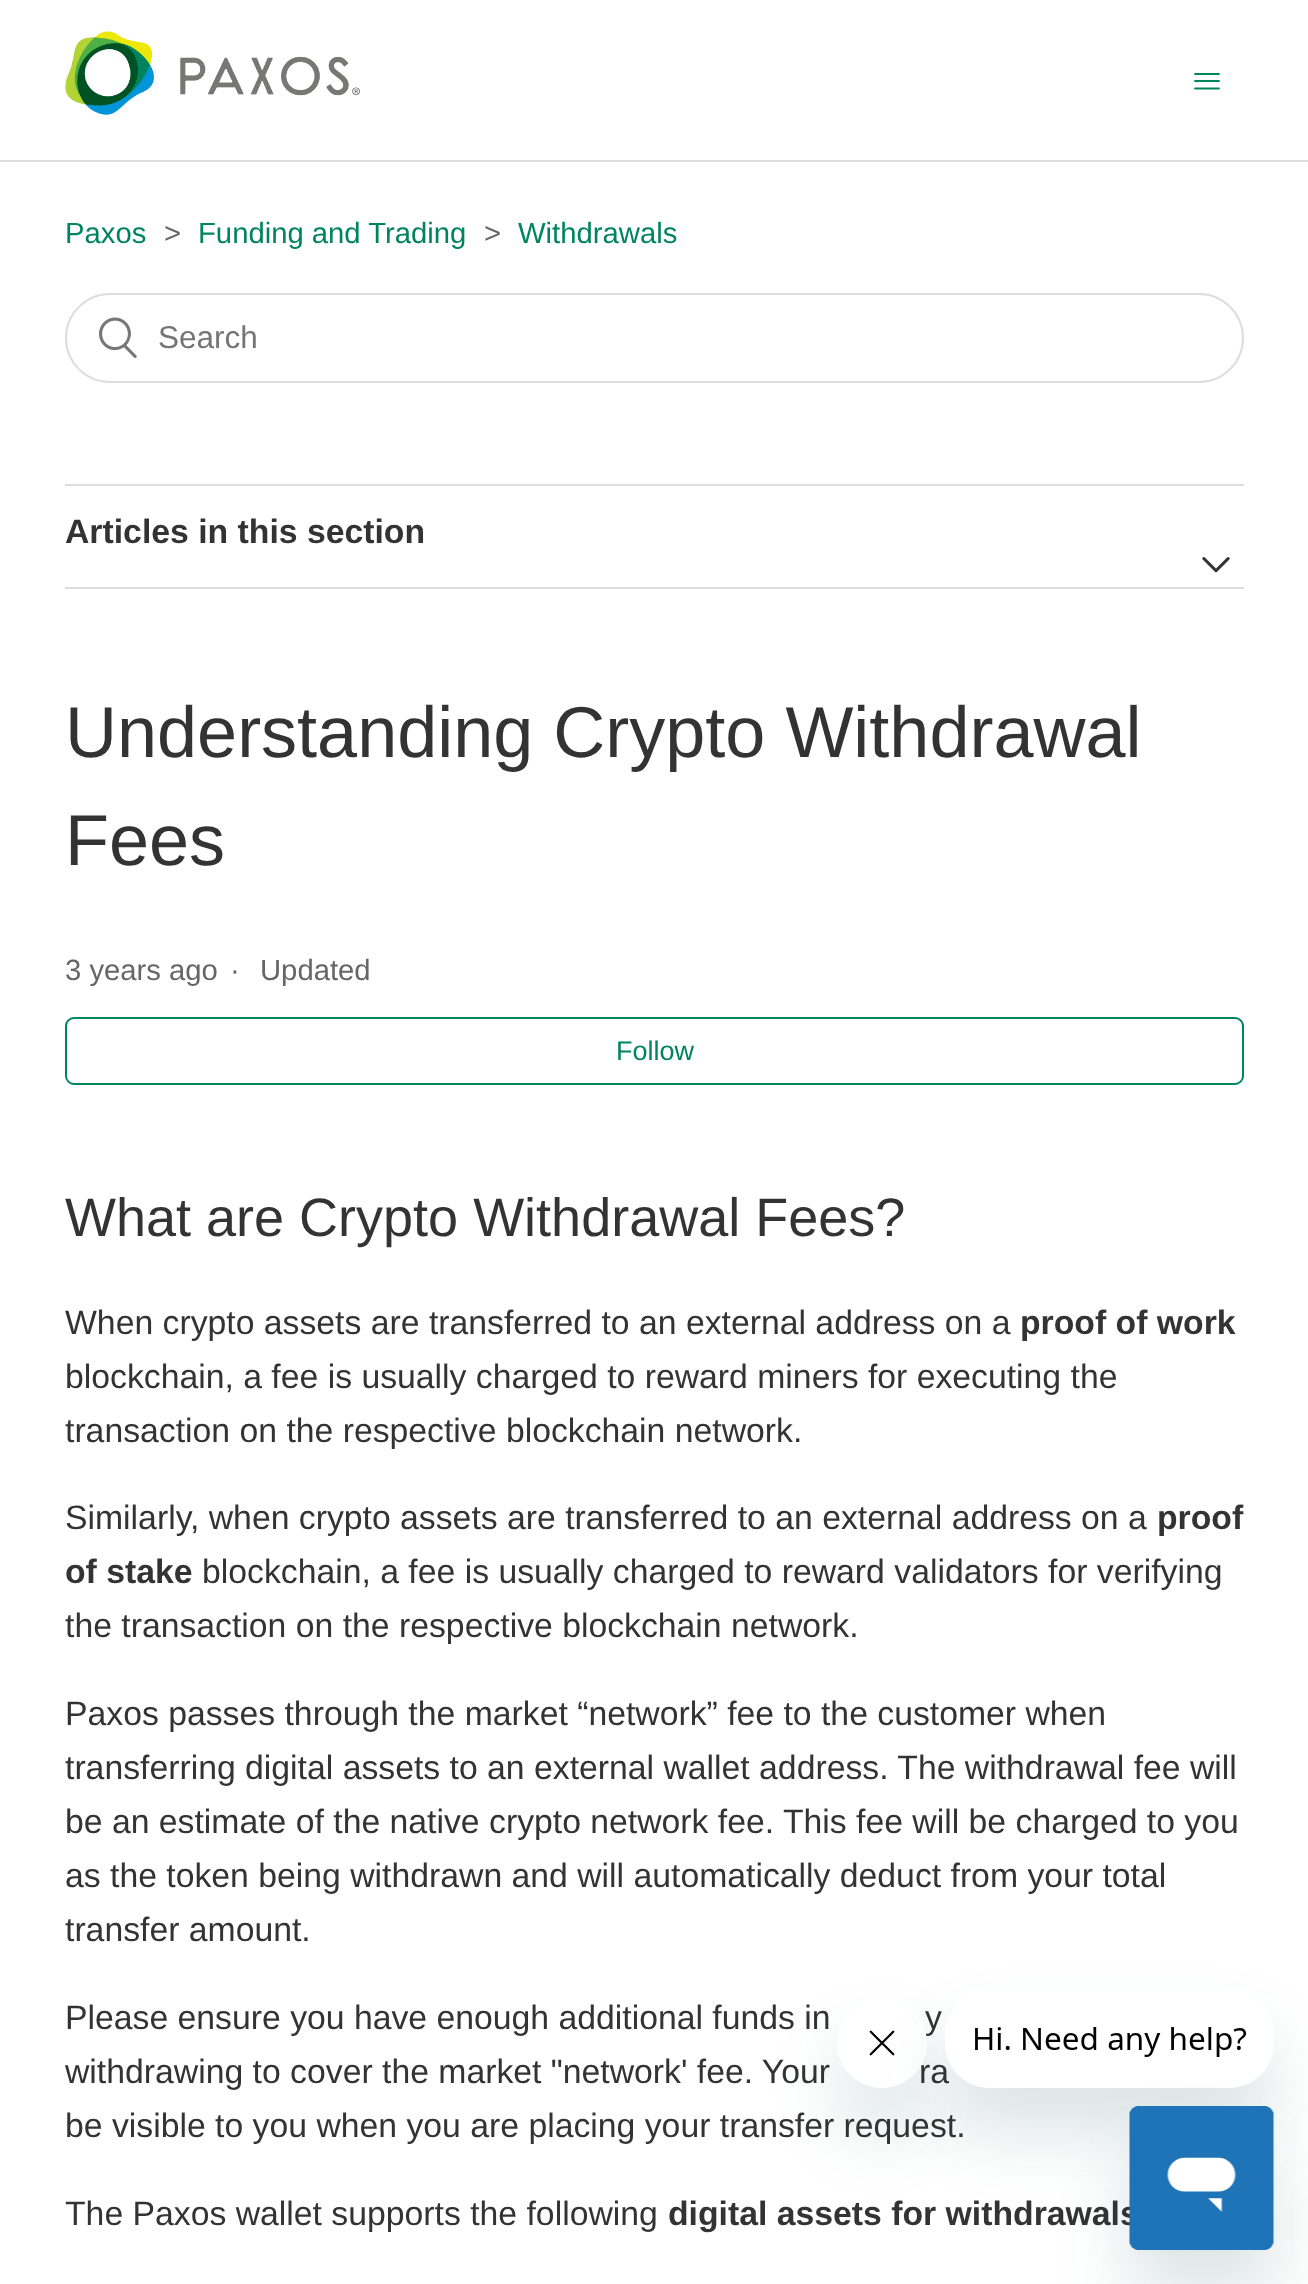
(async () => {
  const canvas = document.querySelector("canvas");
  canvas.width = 1308;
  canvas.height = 2284;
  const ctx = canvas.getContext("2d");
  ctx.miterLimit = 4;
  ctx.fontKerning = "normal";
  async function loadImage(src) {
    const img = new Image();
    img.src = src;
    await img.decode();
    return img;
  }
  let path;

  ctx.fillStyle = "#ffffff";
  ctx.fillRect(0, 0, 1308, 2284);
  ctx.drawImage(await loadImage("img/1.png"), 65, 31, 295, 84);
  path = new Path2D("M1195 74H1219M1195 81H1219M1195 88.5H1219");
  ctx.strokeStyle = "#00845e";
  ctx.lineWidth = 1.8;
  ctx.lineCap = "round";
  ctx.stroke(path);
  ctx.fillStyle = "#dddddd";
  ctx.fillRect(0, 160, 1308, 2);
  ctx.beginPath();
  ctx.roundRect(66, 294, 1177, 88, 44);
  ctx.strokeStyle = "#dddddd";
  ctx.lineWidth = 2;
  ctx.stroke();
  ctx.drawImage(await loadImage("img/2.png"), 99, 317, 38, 41);
  ctx.fillRect(65, 484, 1179, 2);
  ctx.fillRect(65, 587, 1179, 2);
  ctx.drawImage(await loadImage("img/3.png"), 1202, 557, 28, 16);
  ctx.beginPath();
  ctx.roundRect(66, 1018, 1177, 66, 8);
  ctx.strokeStyle = "#00845e";
  ctx.stroke();
  ctx.save();
  path = new Path2D("M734 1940H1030V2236H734ZM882 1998C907 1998 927 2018 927 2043C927 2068 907 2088 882 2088C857 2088 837 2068 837 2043C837 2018 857 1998 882 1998Z");
  ctx.clip(path, "evenodd");
  ctx.fillStyle = "rgba(23, 73, 77, 0.15)";
  ctx.filter = "blur(34px)";
  ctx.beginPath();
  ctx.roundRect(837, 2043, 90, 90, 45);
  ctx.fill();
  ctx.filter = "none";
  ctx.restore();
  ctx.font = "29.25px Liberation Sans";
  ctx.fillStyle = "#00845e";
  ctx.fillText("Paxos", 65, 243);
  ctx.fillStyle = "#666666";
  ctx.fillText(">", 164, 243);
  ctx.fillStyle = "#00845e";
  ctx.fillText("Funding and Trading", 198, 243);
  ctx.fillStyle = "#666666";
  ctx.fillText(">", 484, 243);
  ctx.fillStyle = "#00845e";
  ctx.fillText("Withdrawals", 518, 243);
  ctx.font = "31.5px Liberation Sans";
  ctx.fillStyle = "#757575";
  ctx.fillText("Search", 158, 348);
  ctx.font = "bold 33.75px Liberation Sans";
  ctx.fillStyle = "#333333";
  ctx.fillText("Articles in this section", 65, 543);
  ctx.font = "72px Liberation Sans";
  ctx.fillText("Understanding Crypto Withdrawal", 65, 757);
  ctx.fillText("Fees", 65, 865);
  ctx.font = "29.25px Liberation Sans";
  ctx.fillStyle = "#666666";
  for (const [text, x, y] of [
    ["3 years ago", 65, 980],
    ["·", 230, 980],
    ["Updated", 260, 980],
  ]) {
    ctx.fillText(text, x, y);
  }
  ctx.font = "27px Liberation Sans";
  ctx.fillStyle = "#00845e";
  ctx.fillText("Follow", 616, 1060);
  ctx.font = "54px Liberation Sans";
  ctx.fillStyle = "#333333";
  ctx.fillText("What are Crypto Withdrawal Fees?", 65, 1236);
  ctx.font = "33.75px Liberation Sans";
  ctx.fillText("When crypto assets are transferred to an external address on a", 65, 1334);
  ctx.font = "bold 33.75px Liberation Sans";
  ctx.fillText("proof of work", 1020, 1334);
  ctx.font = "33.75px Liberation Sans";
  for (const [text, x, y] of [
    ["blockchain, a fee is usually charged to reward miners for executing the", 65, 1388],
    ["transaction on the respective blockchain network.", 65, 1442],
    ["Similarly, when crypto assets are transferred to an external address on a", 65, 1529],
  ]) {
    ctx.fillText(text, x, y);
  }
  ctx.font = "bold 33.75px Liberation Sans";
  ctx.fillText("proof", 1157, 1529);
  ctx.fillText("of stake", 65, 1583);
  ctx.font = "33.75px Liberation Sans";
  for (const [text, x, y] of [
    ["blockchain, a fee is usually charged to reward validators for verifying", 202, 1583],
    ["the transaction on the respective blockchain network.", 65, 1637],
    ["Paxos passes through the market “network” fee to the customer when", 65, 1725],
    ["transferring digital assets to an external wallet address. The withdrawal fee will", 65, 1779],
    ["be an estimate of the native crypto network fee. This fee will be charged to you", 65, 1833],
    ["as the token being withdrawn and will automatically deduct from your total", 65, 1887],
    ["transfer amount.", 65, 1941],
    ["Please ensure you have enough additional funds in", 65, 2029],
    ["y", 925, 2029],
    ["withdrawing to cover the market \"network' fee. Your", 65, 2083],
    ["ra", 919, 2083],
    ["be visible to you when you are placing your transfer request.", 65, 2137],
    ["The Paxos wallet supports the following", 65, 2225],
  ]) {
    ctx.fillText(text, x, y);
  }
  ctx.font = "bold 33.75px Liberation Sans";
  ctx.fillText("digital assets for withdrawals", 668, 2225);
  ctx.drawImage(await loadImage("img/5.png"), 843, 2007, 84, 77);
  ctx.save();
  path = new Path2D("M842 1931H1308V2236H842ZM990 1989H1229C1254 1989 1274 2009 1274 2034V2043C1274 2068 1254 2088 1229 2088H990C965 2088 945 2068 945 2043V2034C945 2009 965 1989 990 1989Z");
  ctx.clip(path, "evenodd");
  ctx.fillStyle = "rgba(23, 73, 77, 0.15)";
  ctx.filter = "blur(34px)";
  ctx.beginPath();
  ctx.roundRect(945, 2034, 329, 99, 45);
  ctx.fill();
  ctx.filter = "none";
  ctx.restore();
  ctx.drawImage(await loadImage("img/4.png"), 945, 2007, 302, 81);
  ctx.fillStyle = "rgba(23, 73, 77, 0.15)";
  ctx.filter = "blur(34px)";
  ctx.beginPath();
  ctx.roundRect(1130, 2151, 144, 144, 9);
  ctx.fill();
  ctx.filter = "none";
  ctx.drawImage(await loadImage("img/6.png"), 1129, 2106, 145, 144);
})();
